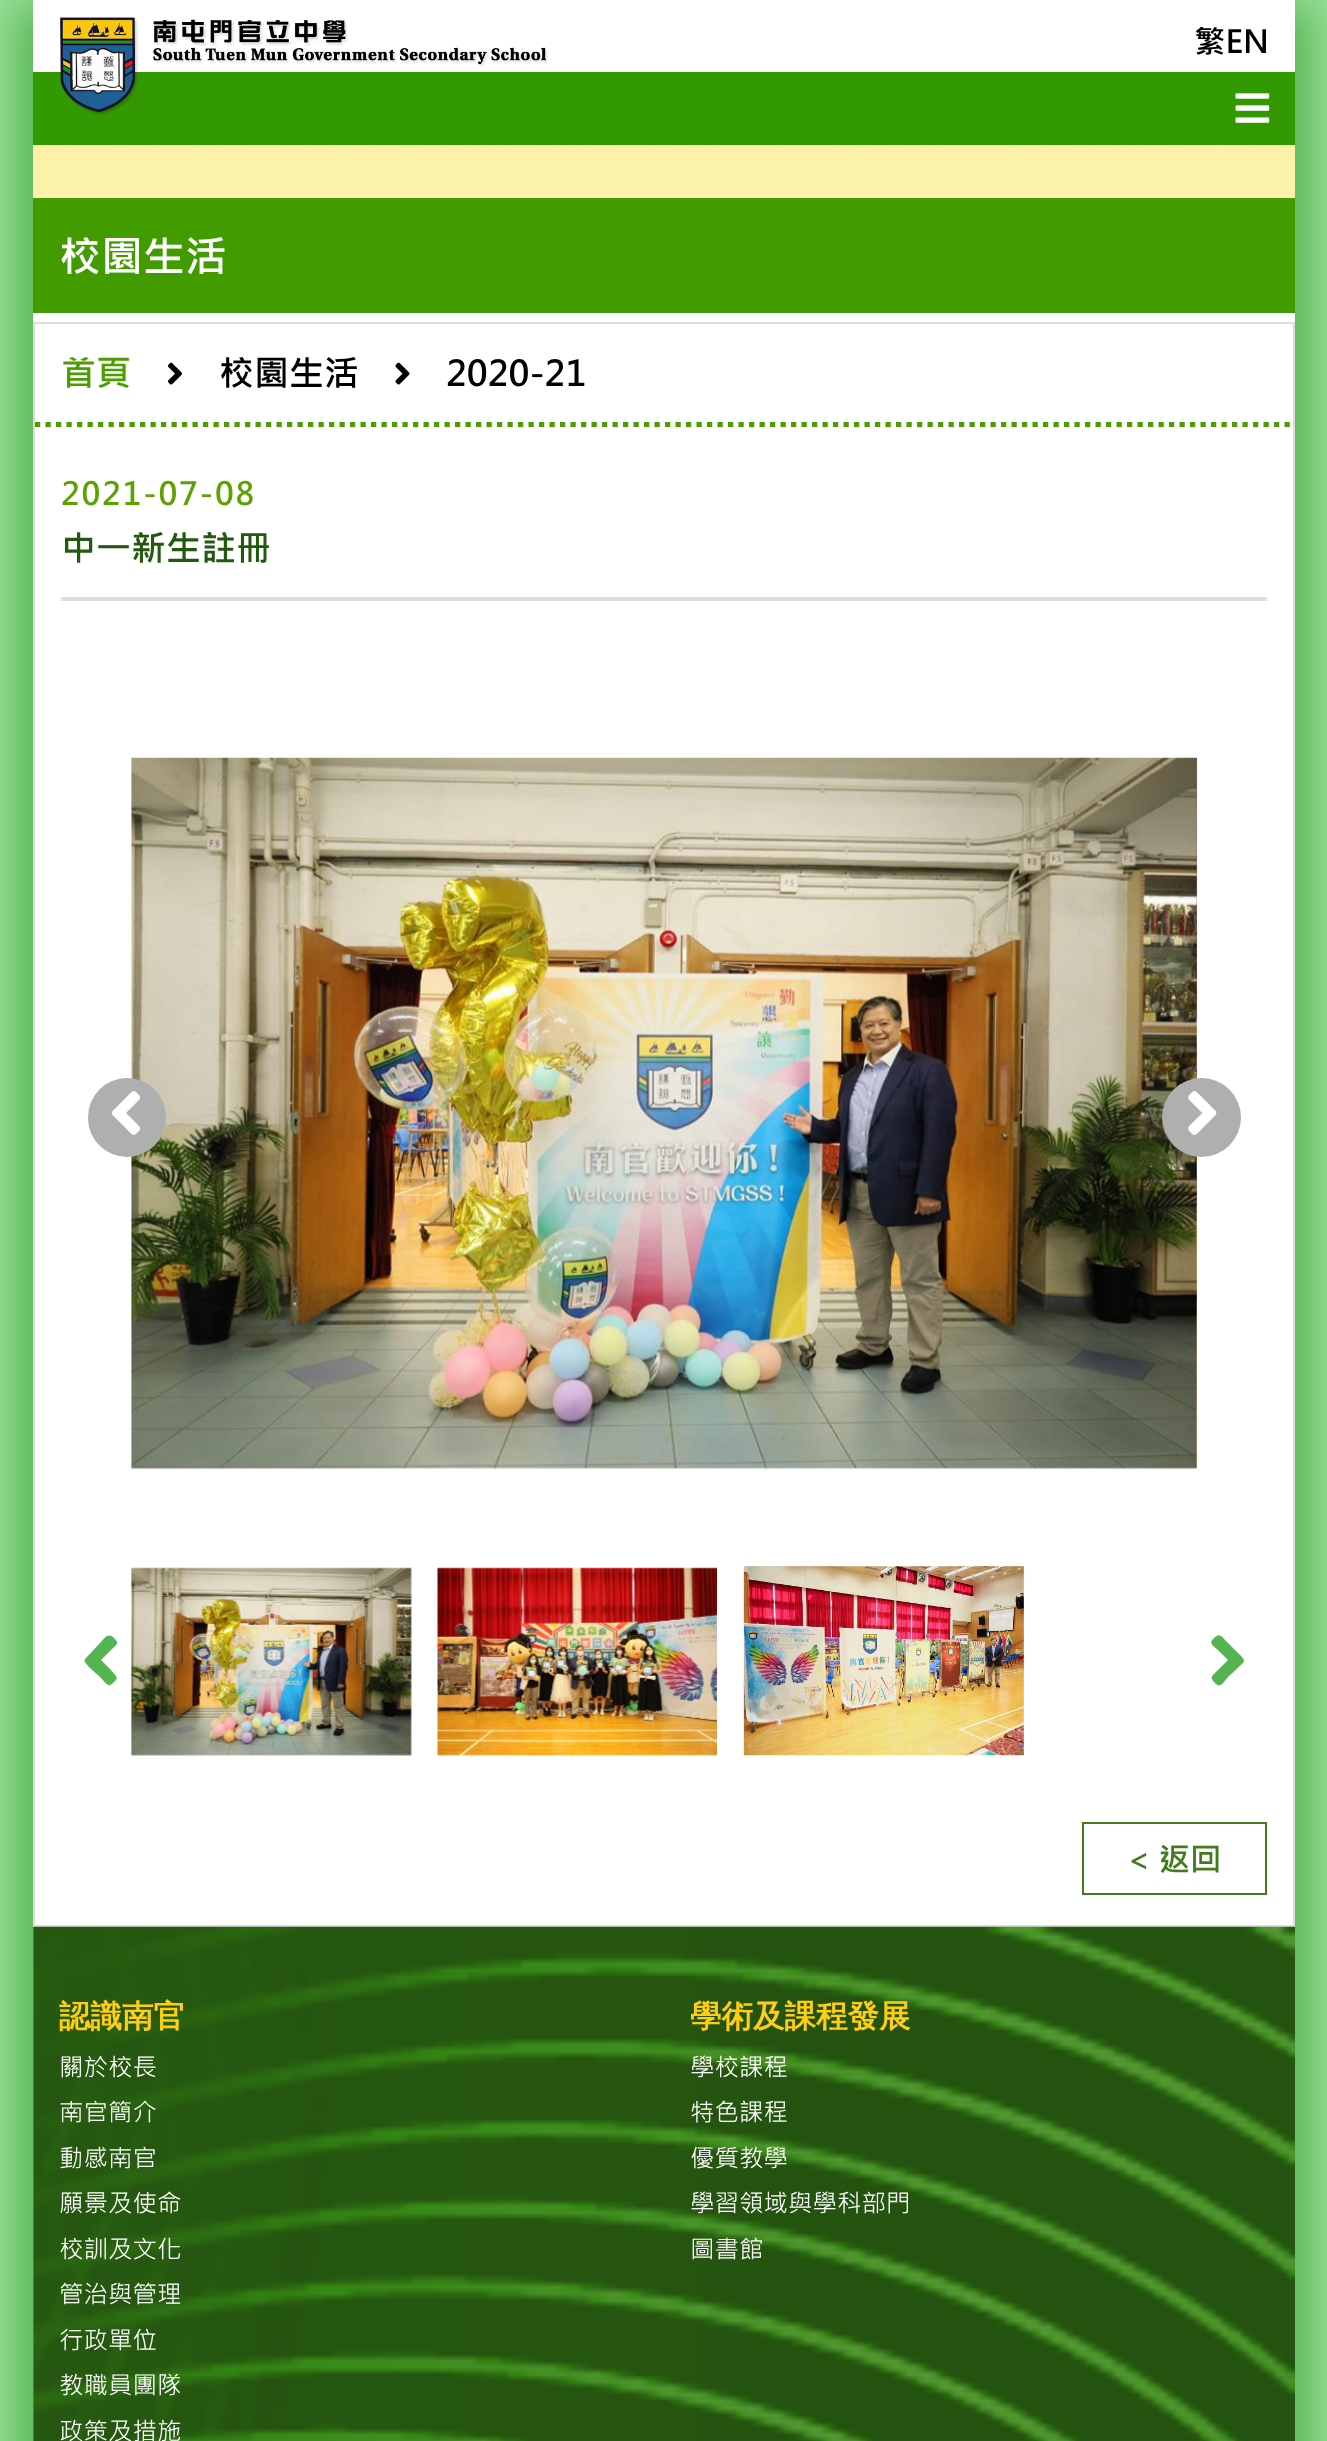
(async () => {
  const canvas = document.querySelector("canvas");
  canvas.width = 1327;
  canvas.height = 2441;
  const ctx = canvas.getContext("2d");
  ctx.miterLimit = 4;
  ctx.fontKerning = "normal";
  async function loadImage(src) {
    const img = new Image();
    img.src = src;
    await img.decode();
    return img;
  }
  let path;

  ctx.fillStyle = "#97de95";
  ctx.fillRect(0, 0, 1327, 2441);
  ctx.fillStyle = "#54b451";
  ctx.filter = "blur(22px)";
  ctx.beginPath();
  ctx.rect(19, 7, 1248, 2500);
  ctx.fill();
  ctx.filter = "none";
  ctx.filter = "blur(22px)";
  ctx.beginPath();
  ctx.rect(61, 7, 1248, 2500);
  ctx.fill();
  ctx.filter = "none";
  ctx.fillStyle = "#ffffff";
  ctx.fillRect(33, 0, 1262, 72);
  ctx.fillStyle = "#339900";
  ctx.fillRect(33, 72, 1262, 73);
  ctx.drawImage(await loadImage("img/1.png"), 60, 17, 488, 98);
  ctx.drawImage(await loadImage("img/2.png"), 1235, 93, 35, 30);
  ctx.fillStyle = "#ffffff";
  ctx.fillRect(33, 145, 1262, 53);
  ctx.drawImage(await loadImage("img/3.png"), 33, 145, 1262, 53);
  for (const [x, y, w, h, color] of [
    [33, 313, 1262, 9, "#ffffff"],
    [33, 198, 1262, 115, "#429c00"],
    [35, 324, 1258, 103, "#ffffff"],
  ]) {
    ctx.fillStyle = color;
    ctx.fillRect(x, y, w, h);
  }
  ctx.strokeStyle = "#dddddd";
  ctx.lineWidth = 2;
  ctx.strokeRect(34, 323, 1260, 1603);
  path = new Path2D("M35 424.5H1293");
  ctx.strokeStyle = "#4b9e00";
  ctx.lineWidth = 5.2;
  ctx.setLineDash([5.25, 5.25]);
  ctx.stroke(path);
  ctx.drawImage(await loadImage("img/4.png"), 168, 362, 14, 23);
  ctx.drawImage(await loadImage("img/5.png"), 395, 362, 15, 23);
  ctx.fillRect(35, 427, 1258, 1498);
  ctx.fillStyle = "#dddddd";
  ctx.fillRect(61, 597, 1206, 4);
  ctx.drawImage(await loadImage("img/6.png"), 131, 757, 1066, 712);
  ctx.drawImage(await loadImage("img/7.png"), 1196, 757, 1, 712);
  ctx.fillStyle = "#afafaf";
  ctx.beginPath();
  ctx.roundRect(88, 1078, 78, 79, 39);
  ctx.fill();
  ctx.drawImage(await loadImage("img/8.png"), 112, 1091, 29, 44);
  ctx.beginPath();
  ctx.arc(1201.5, 1117.5, 39.5, 0, Math.PI * 2);
  ctx.fill();
  ctx.drawImage(await loadImage("img/9.png"), 1188, 1091, 29, 44);
  ctx.drawImage(await loadImage("img/10.png"), 131, 1567, 281, 189);
  ctx.drawImage(await loadImage("img/11.png"), 437, 1567, 280, 189);
  ctx.drawImage(await loadImage("img/12.png"), 743, 1566, 281, 190);
  ctx.fillStyle = "#54b451";
  path = new Path2D("M86 1658L100 1643C106 1637 108 1632 115 1639C120 1644 115 1646 111 1650L101 1660L111 1670C112 1672 119 1677 116 1680C108 1689 108 1685 100 1677L89 1667C87 1664 82 1661 86 1658Z");
  ctx.fill(path);
  path = new Path2D("M1243 1663L1228 1677C1222 1684 1220 1689 1214 1682C1209 1677 1213 1675 1218 1670L1228 1660L1218 1650C1216 1648 1209 1644 1212 1640C1220 1631 1221 1636 1228 1643L1239 1654C1241 1656 1246 1660 1243 1663Z");
  ctx.fill(path);
  ctx.strokeStyle = "#457b1f";
  ctx.lineWidth = 2;
  ctx.setLineDash([]);
  ctx.strokeRect(1083, 1823, 183, 71);
  ctx.drawImage(await loadImage("img/13.png"), 33, 1926, 1262, 515);
  ctx.font = "bold 31.5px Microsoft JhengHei";
  ctx.fillStyle = "#000000";
  ctx.fillText("繁EN", 1194, 53);
  ctx.font = "bold 42px Microsoft JhengHei";
  ctx.fillStyle = "#ffffff";
  ctx.fillText("校園生活", 59, 272);
  ctx.font = "bold 35px Microsoft JhengHei";
  ctx.fillStyle = "#4b9e00";
  ctx.fillText("首頁", 61, 386);
  ctx.fillStyle = "#000000";
  ctx.fillText("校園生活", 219, 386);
  ctx.fillText("2020-21", 446, 386);
  ctx.letterSpacing = "1.75px";
  ctx.font = "bold 31.5px Microsoft JhengHei";
  ctx.fillStyle = "#5da200";
  ctx.fillText("2021-07-08", 61, 505);
  ctx.letterSpacing = "0px";
  ctx.font = "bold 35px Microsoft JhengHei";
  ctx.fillStyle = "#22590e";
  ctx.fillText("中一新生註冊", 61, 561);
  ctx.font = "bold 31.5px Microsoft JhengHei";
  ctx.fillStyle = "#457b1f";
  ctx.fillText("< 返回", 1127, 1871);
  ctx.font = "bold 31.5px WenQuanYi Zen Hei";
  ctx.fillStyle = "#ffcd14";
  ctx.fillText("認識南官", 59, 2027);
  ctx.font = "24.5px Microsoft JhengHei";
  ctx.fillStyle = "#ffffff";
  for (const [text, x, y] of [
    ["關於校長", 59, 2076],
    ["南官簡介", 59, 2121],
    ["動感南官", 59, 2167],
    ["願景及使命", 59, 2212],
    ["校訓及文化", 59, 2258],
    ["管治與管理", 59, 2303],
    ["行政單位", 59, 2349],
    ["教職員團隊", 59, 2394],
    ["政策及措施", 59, 2440],
  ]) {
    ctx.fillText(text, x, y);
  }
  ctx.font = "bold 31.5px WenQuanYi Zen Hei";
  ctx.fillStyle = "#ffcd14";
  ctx.fillText("學術及課程發展", 690, 2027);
  ctx.font = "24.5px Microsoft JhengHei";
  ctx.fillStyle = "#ffffff";
  for (const [text, x, y] of [
    ["學校課程", 690, 2076],
    ["特色課程", 690, 2121],
    ["優質教學", 690, 2167],
    ["學習領域與學科部門", 690, 2212],
    ["圖書館", 690, 2258],
  ]) {
    ctx.fillText(text, x, y);
  }
})();
